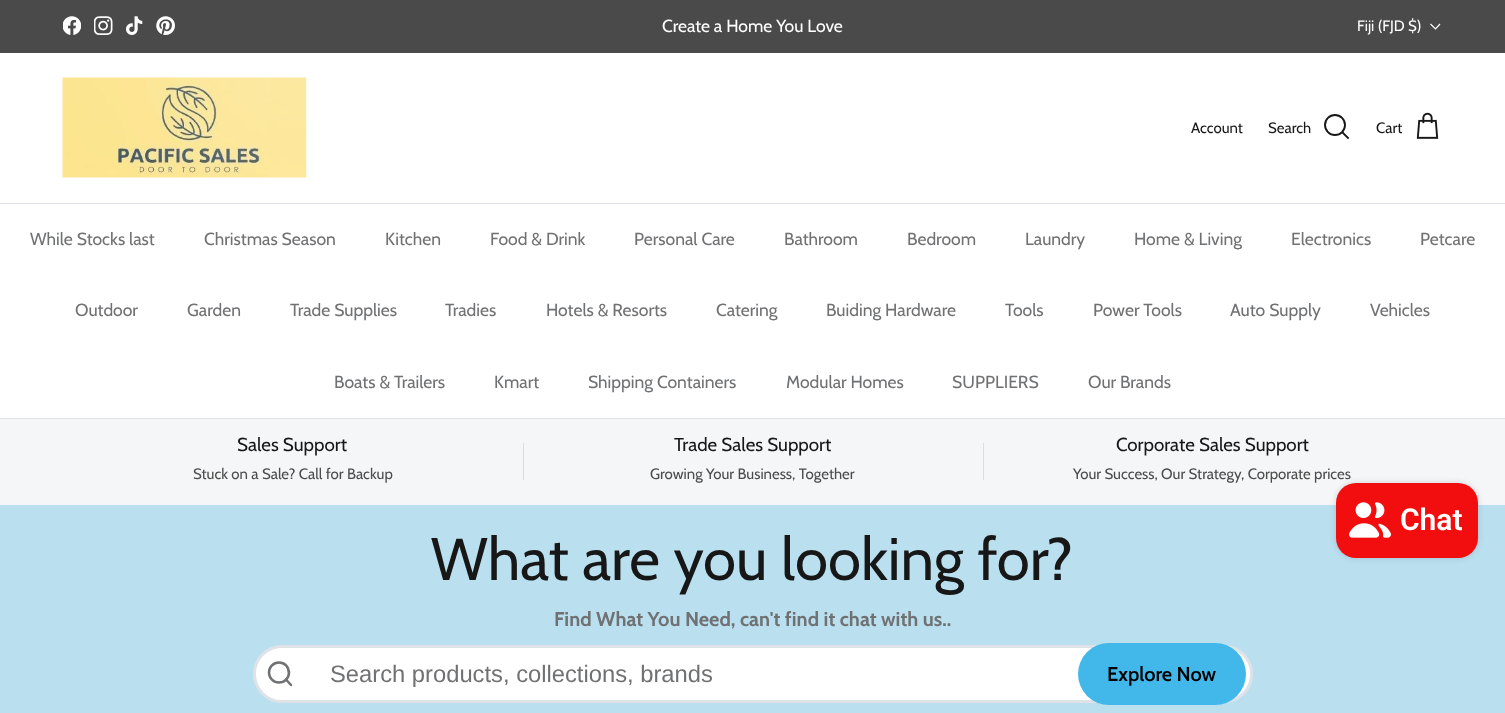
(async () => {
  const canvas = document.querySelector("canvas");
  canvas.width = 1505;
  canvas.height = 713;
  const ctx = canvas.getContext("2d");
  ctx.miterLimit = 4;
  ctx.fontKerning = "normal";
  async function loadImage(src) {
    const img = new Image();
    img.src = src;
    await img.decode();
    return img;
  }
  let path;

  ctx.fillStyle = "#ffffff";
  ctx.fillRect(0, 0, 1505, 713);
  ctx.fillStyle = "#4a4a4a";
  ctx.fillRect(0, 0, 1505, 53);
  ctx.drawImage(await loadImage("img/1.png"), 63, 16, 18, 19);
  ctx.drawImage(await loadImage("img/2.png"), 94, 16, 19, 19);
  ctx.drawImage(await loadImage("img/3.png"), 126, 16, 17, 19);
  ctx.drawImage(await loadImage("img/4.png"), 156, 16, 19, 19);
  path = new Path2D("M1440 24L1435.5 29L1430.5 24");
  ctx.strokeStyle = "#ffffff";
  ctx.lineWidth = 1.2;
  ctx.stroke(path);
  ctx.fillStyle = "#dfe3e8";
  ctx.fillRect(0, 203, 1505, 1);
  ctx.drawImage(await loadImage("img/5.png"), 62, 77, 245, 101);
  ctx.beginPath();
  ctx.arc(1335, 125, 10, 0, Math.PI * 2);
  ctx.strokeStyle = "#171717";
  ctx.lineWidth = 1.9;
  ctx.stroke();
  path = new Path2D("M1342.5 132.5L1348 138");
  ctx.lineCap = "square";
  ctx.stroke(path);
  ctx.drawImage(await loadImage("img/6.png"), 1416, 112, 23, 27);
  for (const [x, y, w, h, color] of [
    [0, 418, 1505, 1, "#dfe3e8"],
    [0, 419, 1505, 86, "#f4f6f8"],
    [523, 443, 1, 37, "#dbddde"],
    [983, 443, 1, 37, "#dbddde"],
    [0, 505, 1505, 208, "#bae0f0"],
  ]) {
    ctx.fillStyle = color;
    ctx.fillRect(x, y, w, h);
  }
  ctx.fillStyle = "rgba(0, 0, 0, 0.15)";
  ctx.filter = "blur(3px)";
  ctx.beginPath();
  ctx.roundRect(1336, 483, 142, 75, 20);
  ctx.fill();
  ctx.filter = "none";
  ctx.fillStyle = "#f20e0e";
  ctx.beginPath();
  ctx.roundRect(1336, 483, 142, 75, 20);
  ctx.fill();
  ctx.drawImage(await loadImage("img/7.png"), 1349, 502, 42, 36);
  ctx.fillStyle = "#ffffff";
  ctx.beginPath();
  ctx.roundRect(254.5, 646.5, 997, 55, 27.5);
  ctx.fill();
  ctx.strokeStyle = "#dfe3e8";
  ctx.lineWidth = 3;
  ctx.stroke();
  ctx.beginPath();
  ctx.arc(279, 672.5, 10, 0, Math.PI * 2);
  ctx.strokeStyle = "#707173";
  ctx.lineWidth = 2.5;
  ctx.stroke();
  path = new Path2D("M291 685L286 679.5");
  ctx.lineCap = "round";
  ctx.lineJoin = "round";
  ctx.stroke(path);
  ctx.fillStyle = "#42b7ea";
  ctx.beginPath();
  ctx.roundRect(1078, 643, 168, 62, 31);
  ctx.fill();
  ctx.font = "17.5px Cabin";
  ctx.fillStyle = "#ffffff";
  ctx.fillText("Create a Home You Love", 662, 32);
  ctx.font = "15px Cabin";
  ctx.fillText("Fiji (FJD $)", 1357, 31);
  ctx.fillStyle = "#171717";
  for (const [text, x, y] of [
    ["Account", 1191, 133],
    ["Search", 1268, 133],
    ["Cart", 1376, 133],
  ]) {
    ctx.fillText(text, x, y);
  }
  ctx.font = "17.5px Cabin";
  ctx.fillStyle = "#707173";
  for (const [text, x, y] of [
    ["While Stocks last", 30, 245],
    ["Christmas Season", 204, 245],
    ["Kitchen", 385, 245],
    ["Food & Drink", 490, 245],
    ["Personal Care", 634, 245],
    ["Bathroom", 784, 245],
    ["Bedroom", 907, 245],
    ["Laundry", 1025, 245],
    ["Home & Living", 1134, 245],
    ["Electronics", 1291, 245],
    ["Petcare", 1420, 245],
    ["Outdoor", 75, 316],
    ["Garden", 187, 316],
    ["Trade Supplies", 290, 316],
    ["Tradies", 445, 316],
    ["Hotels & Resorts", 546, 316],
    ["Catering", 716, 316],
    ["Buiding Hardware", 826, 316],
    ["Tools", 1005, 316],
    ["Power Tools", 1093, 316],
    ["Auto Supply", 1230, 316],
    ["Vehicles", 1370, 316],
    ["Boats & Trailers", 334, 388],
    ["Kmart", 494, 388],
    ["Shipping Containers", 588, 388],
    ["Modular Homes", 786, 388],
    ["SUPPLIERS", 952, 388],
    ["Our Brands", 1088, 388],
  ]) {
    ctx.fillText(text, x, y);
  }
  ctx.font = "18.75px Cabin";
  ctx.fillStyle = "#171717";
  ctx.fillText("Sales Support", 237, 451);
  ctx.font = "15px Cabin";
  ctx.fillStyle = "#4c4c4b";
  ctx.fillText("Stuck on a Sale? Call for Backup", 193, 479);
  ctx.font = "18.75px Cabin";
  ctx.fillStyle = "#171717";
  ctx.fillText("Trade Sales Support", 674, 451);
  ctx.font = "15px Cabin";
  ctx.fillStyle = "#4c4c4b";
  ctx.fillText("Growing Your Business, Together", 650, 479);
  ctx.font = "18.75px Cabin";
  ctx.fillStyle = "#171717";
  ctx.fillText("Corporate Sales Support", 1116, 451);
  ctx.font = "15px Cabin";
  ctx.fillStyle = "#4c4c4b";
  ctx.fillText("Your Success, Our Strategy, Corporate prices", 1073, 479);
  ctx.font = "600 30px Roboto";
  ctx.fillStyle = "#ffffff";
  ctx.fillText("Chat", 1400, 530);
  ctx.font = "60px Cabin";
  ctx.fillStyle = "#171717";
  ctx.fillText("What are you looking for?", 431, 580);
  ctx.font = "bold 20px Cabin";
  ctx.fillStyle = "#707173";
  ctx.fillText("Find What You Need, can't find it chat with us..", 554, 626);
  ctx.font = "23.75px Liberation Sans";
  ctx.fillText("Search products, collections, brands", 330, 682);
  ctx.font = "600 20px Cabin";
  ctx.fillStyle = "#000000";
  ctx.fillText("Explore Now", 1107, 681);
})();
